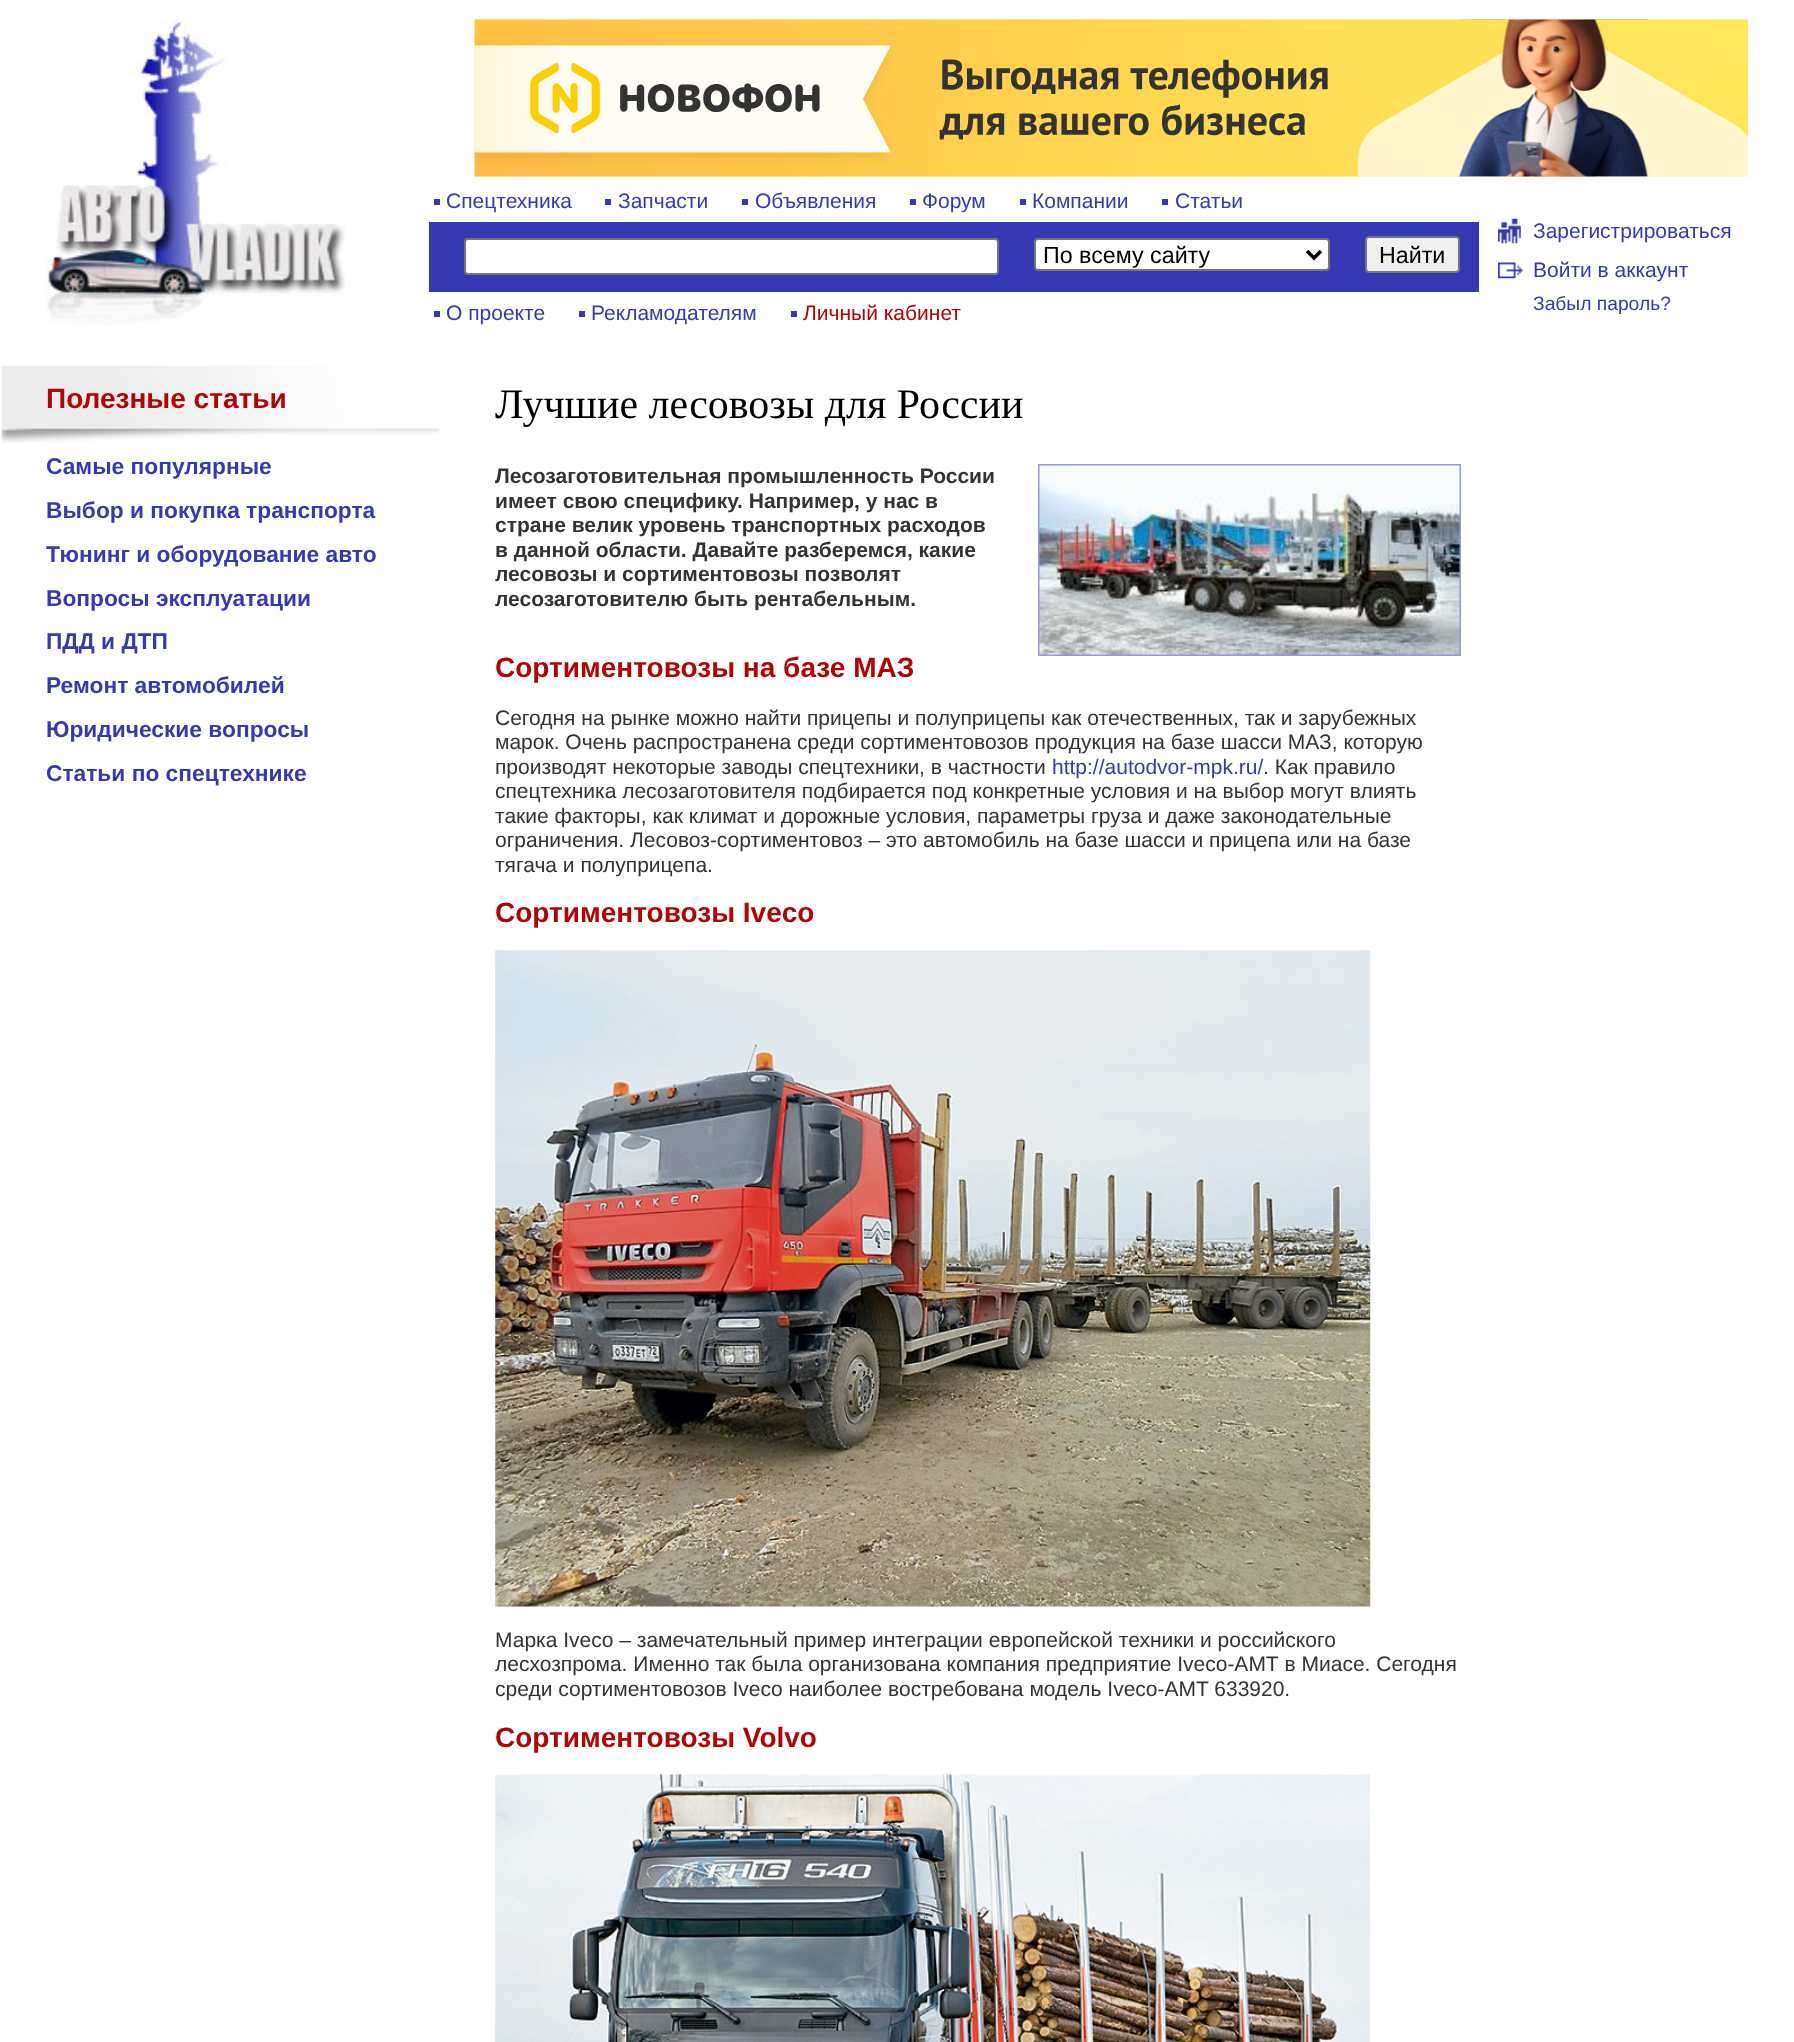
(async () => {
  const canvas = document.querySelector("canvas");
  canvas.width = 1794;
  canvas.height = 2042;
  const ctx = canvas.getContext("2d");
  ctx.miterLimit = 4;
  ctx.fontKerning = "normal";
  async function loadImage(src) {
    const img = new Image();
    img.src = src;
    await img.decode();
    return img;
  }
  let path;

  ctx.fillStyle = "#ffffff";
  ctx.fillRect(0, 0, 1794, 2042);
  ctx.drawImage(await loadImage("img/1.png"), 45, 19, 301, 306);
  ctx.drawImage(await loadImage("img/2.png"), 474, 19, 1274, 158);
  for (const [x, y, w, h, color] of [
    [434, 199, 6, 6, "#3639b4"],
    [605, 199, 6, 6, "#3639b4"],
    [742, 199, 6, 6, "#3639b4"],
    [910, 199, 6, 6, "#3639b4"],
    [1020, 199, 6, 6, "#3639b4"],
    [1162, 199, 6, 6, "#3639b4"],
    [429, 222, 1050, 70, "#3639b4"],
  ]) {
    ctx.fillStyle = color;
    ctx.fillRect(x, y, w, h);
  }
  ctx.fillStyle = "#ffffff";
  ctx.beginPath();
  ctx.roundRect(465, 239, 533, 35, 3);
  ctx.fill();
  ctx.strokeStyle = "#767676";
  ctx.lineWidth = 2;
  ctx.stroke();
  ctx.beginPath();
  ctx.roundRect(1035, 239, 294, 31, 3);
  ctx.fill();
  ctx.stroke();
  path = new Path2D("M1307 251L1314 258L1321 251");
  ctx.strokeStyle = "#000000";
  ctx.lineWidth = 3.5;
  ctx.stroke(path);
  ctx.fillStyle = "#efefef";
  ctx.beginPath();
  ctx.roundRect(1366, 237, 93, 35, 3);
  ctx.fill();
  ctx.strokeStyle = "#767676";
  ctx.lineWidth = 2;
  ctx.stroke();
  for (const [x, y, w, h, color] of [
    [434, 311, 6, 6, "#3639b4"],
    [579, 311, 6, 6, "#3639b4"],
    [791, 311, 6, 6, "#3639b4"],
  ]) {
    ctx.fillStyle = color;
    ctx.fillRect(x, y, w, h);
  }
  ctx.drawImage(await loadImage("img/3.png"), 1498, 218, 23, 26);
  ctx.drawImage(await loadImage("img/4.png"), 1498, 262, 25, 17);
  ctx.drawImage(await loadImage("img/5.png"), 1, 365, 439, 78);
  ctx.strokeStyle = "#9697df";
  ctx.strokeRect(1039, 465, 421, 190);
  ctx.drawImage(await loadImage("img/6.png"), 1039, 465, 421, 190);
  ctx.drawImage(await loadImage("img/7.png"), 495, 950, 876, 657);
  ctx.drawImage(await loadImage("img/8.png"), 495, 1774, 876, 268);
  ctx.font = "21px Liberation Sans";
  for (const [text, x, y] of [
    ["Спецтехника", 446, 208],
    ["Запчасти", 618, 208],
    ["Объявления", 755, 208],
    ["Форум", 922, 208],
    ["Компании", 1032, 208],
    ["Статьи", 1175, 208],
  ]) {
    ctx.fillText(text, x, y);
  }
  ctx.font = "23.25px Liberation Sans";
  ctx.fillStyle = "#000000";
  ctx.fillText("По всему сайту", 1043, 263);
  ctx.fillText("Найти", 1379, 263);
  ctx.font = "21px Liberation Sans";
  ctx.fillStyle = "#3639b4";
  ctx.fillText("О проекте", 446, 320);
  ctx.fillText("Рекламодателям", 591, 320);
  ctx.fillStyle = "#b30305";
  ctx.fillText("Личный кабинет", 803, 320);
  ctx.fillStyle = "#3639b4";
  ctx.fillText("Зарегистрироваться", 1533, 238);
  ctx.fillText("Войти в аккаунт", 1533, 277);
  ctx.font = "19.25px Liberation Sans";
  ctx.fillText("Забыл пароль?", 1533, 310);
  ctx.font = "bold 28px Liberation Sans";
  ctx.fillStyle = "#b30305";
  ctx.fillText("Полезные статьи", 46, 408);
  ctx.font = "bold 22.75px Liberation Sans";
  ctx.fillStyle = "#3639b4";
  for (const [text, x, y] of [
    ["Самые популярные", 46, 474],
    ["Выбор и покупка транспорта", 46, 518],
    ["Тюнинг и оборудование авто", 46, 562],
    ["Вопросы эксплуатации", 46, 606],
    ["ПДД и ДТП", 46, 649],
    ["Ремонт автомобилей", 46, 693],
    ["Юридические вопросы", 46, 737],
    ["Статьи по спецтехнике", 46, 781],
  ]) {
    ctx.fillText(text, x, y);
  }
  ctx.font = "42px Liberation Serif";
  ctx.fillStyle = "#000000";
  ctx.fillText("Лучшие лесовозы для России", 495, 418);
  ctx.font = "bold 21px Liberation Sans";
  ctx.fillStyle = "#333333";
  for (const [text, x, y] of [
    ["Лесозаготовительная промышленность России", 495, 483],
    ["имеет свою специфику. Например, у нас в", 495, 508],
    ["стране велик уровень транспортных расходов", 495, 532],
    ["в данной области. Давайте разберемся, какие", 495, 557],
    ["лесовозы и сортиментовозы позволят", 495, 581],
    ["лесозаготовителю быть рентабельным.", 495, 606],
  ]) {
    ctx.fillText(text, x, y);
  }
  ctx.font = "bold 28px Liberation Sans";
  ctx.fillStyle = "#b30305";
  ctx.fillText("Сортиментовозы на базе МАЗ", 495, 677);
  ctx.font = "21px Liberation Sans";
  ctx.fillStyle = "#333333";
  for (const [text, x, y] of [
    ["Сегодня на рынке можно найти прицепы и полуприцепы как отечественных, так и зарубежных", 495, 725],
    ["марок. Очень распространена среди сортиментовозов продукция на базе шасси МАЗ, которую", 495, 749],
    ["производят некоторые заводы спецтехники, в частности", 495, 774],
  ]) {
    ctx.fillText(text, x, y);
  }
  ctx.fillStyle = "#3639b4";
  ctx.fillText("http://autodvor-mpk.ru/", 1052, 774);
  ctx.fillStyle = "#333333";
  for (const [text, x, y] of [
    [". Как правило", 1263, 774],
    ["спецтехника лесозаготовителя подбирается под конкретные условия и на выбор могут влиять", 495, 798],
    ["такие факторы, как климат и дорожные условия, параметры груза и даже законодательные", 495, 823],
    ["ограничения. Лесовоз-сортиментовоз – это автомобиль на базе шасси и прицепа или на базе", 495, 847],
    ["тягача и полуприцепа.", 495, 872],
  ]) {
    ctx.fillText(text, x, y);
  }
  ctx.font = "bold 28px Liberation Sans";
  ctx.fillStyle = "#b30305";
  ctx.fillText("Сортиментовозы Iveco", 495, 922);
  ctx.font = "21px Liberation Sans";
  ctx.fillStyle = "#333333";
  for (const [text, x, y] of [
    ["Марка Iveco – замечательный пример интеграции европейской техники и российского", 495, 1647],
    ["лесхозпрома. Именно так была организована компания предприятие Iveco-АМТ в Миасе. Сегодня", 495, 1671],
    ["среди сортиментовозов Iveco наиболее востребована модель Iveco-AMT 633920.", 495, 1696],
  ]) {
    ctx.fillText(text, x, y);
  }
  ctx.font = "bold 28px Liberation Sans";
  ctx.fillStyle = "#b30305";
  ctx.fillText("Сортиментовозы Volvo", 495, 1747);
})();
